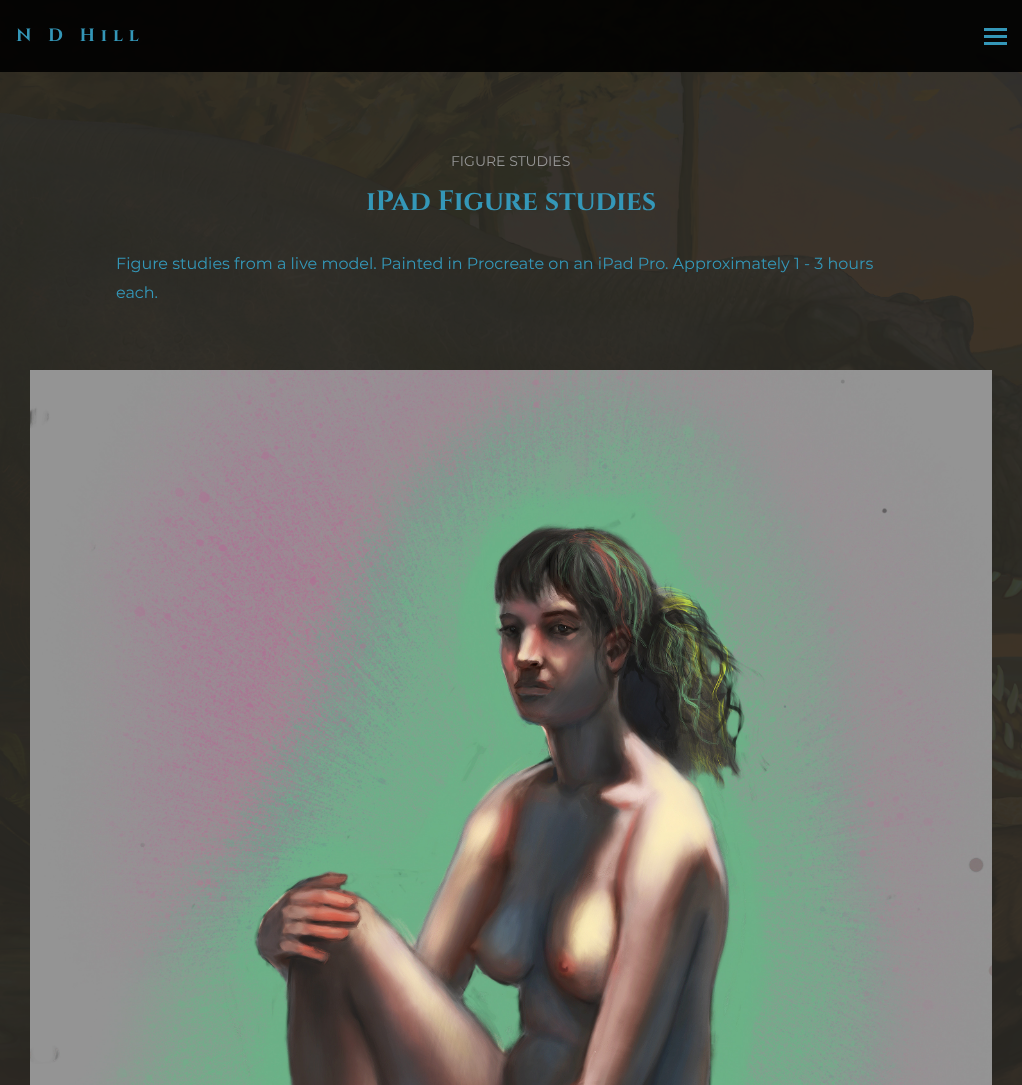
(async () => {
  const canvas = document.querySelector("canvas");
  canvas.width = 1022;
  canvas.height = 1085;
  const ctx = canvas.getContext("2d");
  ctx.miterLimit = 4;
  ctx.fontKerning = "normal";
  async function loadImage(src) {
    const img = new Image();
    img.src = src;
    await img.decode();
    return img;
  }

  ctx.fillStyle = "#2b2a24";
  ctx.fillRect(0, 0, 1022, 1085);
  ctx.drawImage(await loadImage("img/1.png"), 0, 0, 1022, 1085);
  for (const [x, y, w, h, color] of [
    [0, 0, 1022, 72, "rgba(0, 0, 0, 0.9)"],
    [984, 28, 23, 3, "#3497b8"],
    [984, 35, 23, 3, "#3497b8"],
    [984, 42, 23, 3, "#3497b8"],
  ]) {
    ctx.fillStyle = color;
    ctx.fillRect(x, y, w, h);
  }
  ctx.drawImage(await loadImage("img/2.png"), 30, 370, 962, 715);
  ctx.letterSpacing = "6px";
  ctx.font = "bold 18px Cinzel";
  ctx.fillText("N D Hill", 16, 41);
  ctx.letterSpacing = "0px";
  ctx.font = "14px Montserrat";
  ctx.fillStyle = "#979797";
  ctx.fillText("FIGURE STUDIES", 451, 166);
  ctx.font = "bold 28px Cinzel";
  ctx.fillStyle = "#3497b8";
  ctx.fillText("iPad Figure studies", 366, 210);
  ctx.font = "16px Montserrat";
  ctx.fillText("Figure studies from a live model. Painted in Procreate on an iPad Pro. Approximately 1 - 3 hours", 116, 269);
  ctx.fillText("each.", 116, 298);
})();
